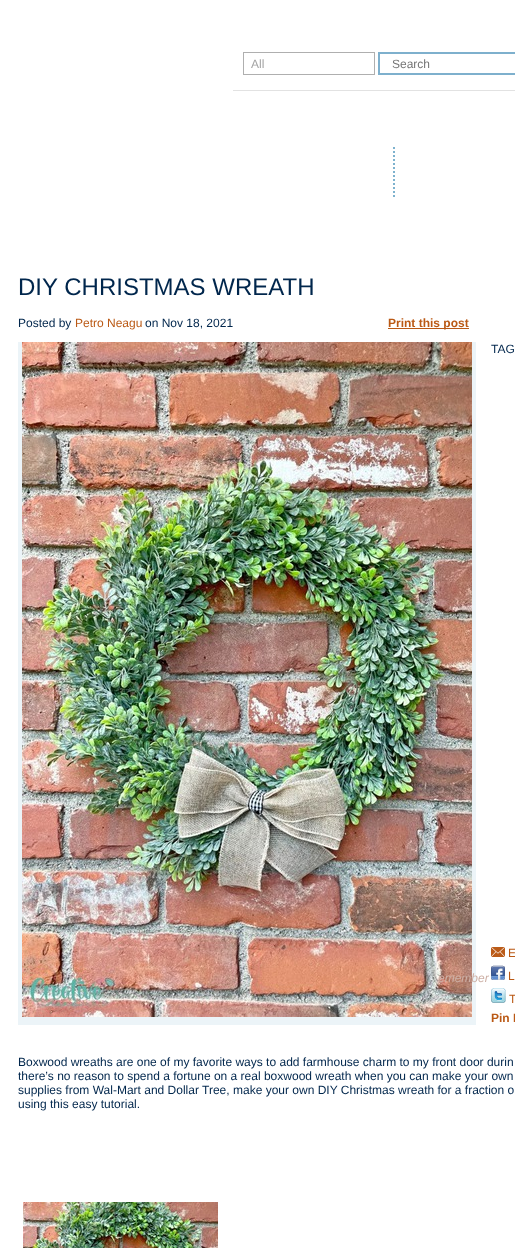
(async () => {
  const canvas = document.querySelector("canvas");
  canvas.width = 515;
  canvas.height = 1248;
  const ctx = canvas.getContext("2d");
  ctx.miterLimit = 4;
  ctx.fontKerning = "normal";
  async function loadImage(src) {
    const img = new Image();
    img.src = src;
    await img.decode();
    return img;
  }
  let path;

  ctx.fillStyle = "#ffffff";
  ctx.fillRect(0, 0, 515, 1248);
  ctx.fillStyle = "#e2e2e2";
  ctx.fillRect(233, 90, 282, 1);
  ctx.strokeStyle = "#afafaf";
  ctx.strokeRect(243.5, 52.5, 131, 22);
  ctx.strokeStyle = "#7eb0cd";
  ctx.lineWidth = 2;
  ctx.strokeRect(379, 53, 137, 21);
  path = new Path2D("M394 147V197");
  ctx.strokeStyle = "#7db2ce";
  ctx.setLineDash([2, 2]);
  ctx.stroke(path);
  ctx.fillStyle = "#ba5915";
  ctx.fillRect(388, 328, 81, 1);
  ctx.fillStyle = "#ecf4f8";
  ctx.fillRect(18, 342, 458, 683);
  ctx.drawImage(await loadImage("img/1.png"), 22, 342, 450, 675);
  ctx.drawImage(await loadImage("img/2.png"), 491, 947, 14, 10);
  ctx.drawImage(await loadImage("img/3.png"), 491, 965, 14, 15);
  ctx.drawImage(await loadImage("img/4.png"), 491, 988, 15, 15);
  ctx.drawImage(await loadImage("img/5.png"), 23, 1202, 195, 46);
  ctx.font = "12px Liberation Sans";
  ctx.fillStyle = "#a3a3a3";
  ctx.fillText("All", 251, 68);
  ctx.fillStyle = "#757575";
  ctx.fillText("Search", 392, 68);
  ctx.font = "24px Liberation Sans";
  ctx.fillStyle = "#00264c";
  ctx.fillText("DIY CHRISTMAS WREATH", 18, 295);
  ctx.font = "12px Liberation Sans";
  ctx.fillText("Posted by", 18, 327);
  ctx.fillStyle = "#ba5915";
  ctx.fillText("Petro Neagu", 75, 327);
  ctx.fillStyle = "#00264c";
  ctx.fillText("on Nov 18, 2021", 145, 327);
  ctx.font = "bold 12px Liberation Sans";
  ctx.fillStyle = "#ba5915";
  ctx.fillText("Print this post", 388, 327);
  ctx.font = "italic 12px Liberation Sans";
  ctx.fillStyle = "#cdb0a6";
  ctx.fillText("emember", 438, 982);
  ctx.font = "12px Liberation Sans";
  ctx.fillStyle = "#00264c";
  ctx.fillText("TAG", 491, 353);
  ctx.fillStyle = "#ba5915";
  for (const [text, x, y] of [
    ["E", 508, 957],
    ["L", 508, 980],
    ["T", 509, 1003],
  ]) {
    ctx.fillText(text, x, y);
  }
  ctx.font = "bold 12px Liberation Sans";
  ctx.fillText("Pin I", 491, 1022);
  ctx.font = "12px Liberation Sans";
  ctx.fillStyle = "#00264c";
  for (const [text, x, y] of [
    ["Boxwood wreaths are one of my favorite ways to add farmhouse charm to my front door durin", 18, 1066],
    ["there’s no reason to spend a fortune on a real boxwood wreath when you can make your own", 18, 1080],
    ["supplies from Wal-Mart and Dollar Tree, make your own DIY Christmas wreath for a fraction o", 18, 1094],
    ["using this easy tutorial.", 18, 1108],
  ]) {
    ctx.fillText(text, x, y);
  }
})();
